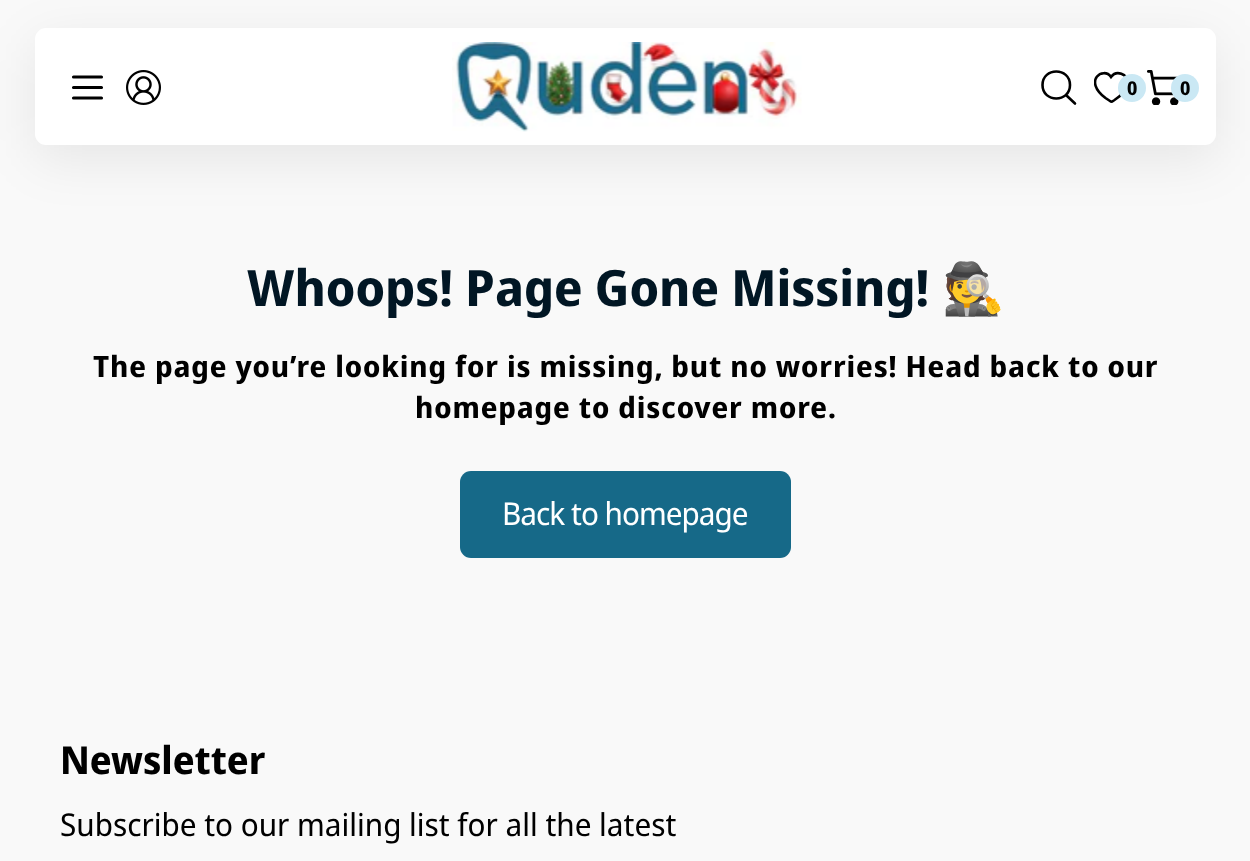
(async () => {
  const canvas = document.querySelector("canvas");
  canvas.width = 1250;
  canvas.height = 861;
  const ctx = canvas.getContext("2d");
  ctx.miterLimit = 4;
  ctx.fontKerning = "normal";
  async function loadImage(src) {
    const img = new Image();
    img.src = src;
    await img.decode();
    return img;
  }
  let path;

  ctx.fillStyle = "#f9f9f9";
  ctx.fillRect(0, 0, 1250, 861);
  ctx.fillStyle = "rgba(0, 0, 0, 0.08)";
  ctx.filter = "blur(26px)";
  ctx.beginPath();
  ctx.roundRect(35, 42, 1181, 117, 11);
  ctx.fill();
  ctx.filter = "none";
  ctx.fillStyle = "#ffffff";
  ctx.beginPath();
  ctx.roundRect(35, 28, 1181, 117, 11);
  ctx.fill();
  path = new Path2D("M73.5 77H101.5M73.5 87.5H101.5M73.5 98H101.5");
  ctx.strokeStyle = "#000000";
  ctx.lineWidth = 3.1;
  ctx.lineCap = "round";
  ctx.stroke(path);
  ctx.drawImage(await loadImage("img/1.png"), 126, 70, 35, 35);
  ctx.drawImage(await loadImage("img/2.png"), 452, 42, 350, 90);
  path = new Path2D("M1066 95L1075 103.5M1042.5 85C1042.5 103 1070 103 1070 85C1070 67 1042.5 67 1042.5 85Z");
  ctx.lineWidth = 2.6;
  ctx.lineJoin = "round";
  ctx.stroke(path);
  ctx.save();
  ctx.beginPath();
  ctx.rect(1094, 70, 35, 35);
  ctx.clip();
  path = new Path2D("M1127.5 82.5C1127.5 90 1120.5 96 1114.5 100C1112 101.5 1112 102.5 1110 101L1105.5 98C1082.5 80.5 1103.5 66 1111 77C1116.5 69.5 1127.5 74 1127.5 82.5Z");
  ctx.lineCap = "butt";
  ctx.lineJoin = "miter";
  ctx.stroke(path);
  ctx.restore();
  ctx.fillStyle = "#cae8f4";
  ctx.beginPath();
  ctx.arc(1132, 88, 14, 0, Math.PI * 2);
  ctx.fill();
  ctx.drawImage(await loadImage("img/3.png"), 1147, 70, 32, 35);
  ctx.beginPath();
  ctx.arc(1185, 88, 14, 0, Math.PI * 2);
  ctx.fill();
  ctx.fillStyle = "#166988";
  ctx.beginPath();
  ctx.roundRect(460, 471, 331, 87, 11);
  ctx.fill();
  ctx.font = "bold 19px Noto Sans Display";
  ctx.fillStyle = "#000000";
  ctx.fillText("0", 1127, 95);
  ctx.fillText("0", 1180, 95);
  ctx.font = "bold 50.25px Noto Sans Display";
  ctx.fillStyle = "#011624";
  ctx.fillText("Whoops! Page Gone Missing!", 247, 306);
  ctx.font = "bold 50.25px Noto Color Emoji";
  ctx.fillText("🕵️", 942, 306);
  ctx.letterSpacing = "0.88px";
  ctx.font = "bold 29.4px Noto Sans Display";
  ctx.fillStyle = "#000000";
  ctx.fillText("The page you’re looking for is missing, but no worries! Head back to our", 93, 377);
  ctx.fillText("homepage to discover more.", 415, 418);
  ctx.letterSpacing = "-1px";
  ctx.font = "31.5px Noto Sans Display";
  ctx.fillStyle = "#ffffff";
  ctx.fillText("Back to homepage", 502, 525);
  ctx.letterSpacing = "0px";
  ctx.font = "bold 38.5px Noto Sans Display";
  ctx.fillStyle = "#000000";
  ctx.fillText("Newsletter", 60, 774);
  ctx.font = "31.5px Noto Sans Display";
  ctx.fillText("Subscribe to our mailing list for all the latest", 60, 836);
})();
